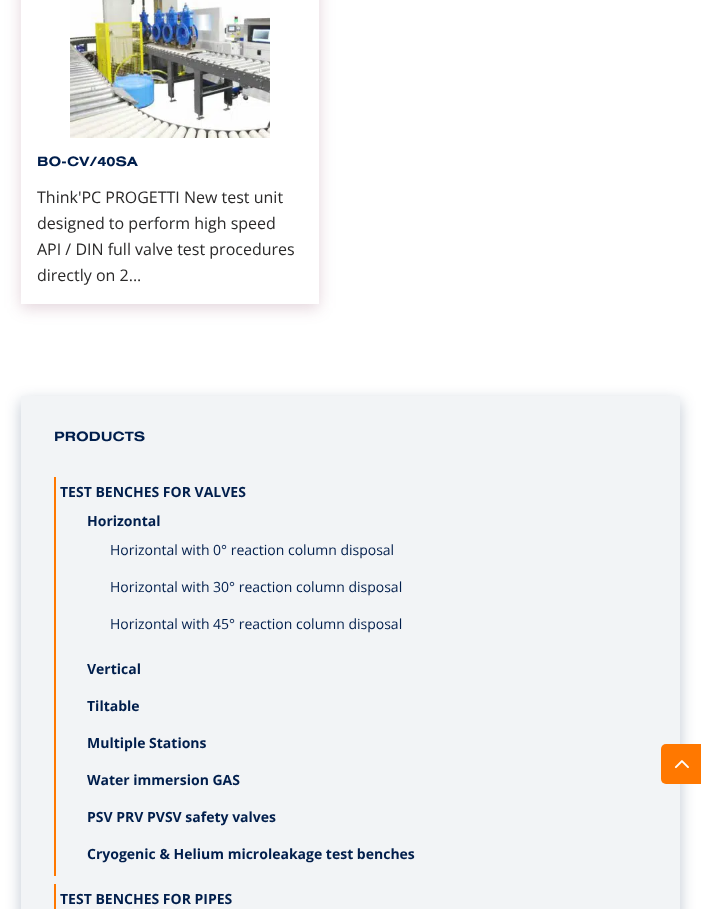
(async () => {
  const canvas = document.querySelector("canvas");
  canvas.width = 701;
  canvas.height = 909;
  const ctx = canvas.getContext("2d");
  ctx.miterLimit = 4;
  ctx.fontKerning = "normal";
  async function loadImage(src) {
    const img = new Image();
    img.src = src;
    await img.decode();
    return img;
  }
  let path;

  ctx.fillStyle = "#ffffff";
  ctx.fillRect(0, 0, 701, 909);
  ctx.save();
  path = new Path2D("M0 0H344V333H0ZM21-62H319V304H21Z");
  ctx.clip(path, "evenodd");
  ctx.fillStyle = "rgba(113, 39, 74, 0.2)";
  ctx.filter = "blur(8px)";
  ctx.beginPath();
  ctx.rect(21, -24, 298, 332);
  ctx.fill();
  ctx.filter = "none";
  ctx.restore();
  ctx.drawImage(await loadImage("img/1.png"), 70, 0, 200, 138);
  ctx.fillStyle = "rgba(0, 30, 76, 0.25)";
  ctx.filter = "blur(7.5px)";
  ctx.beginPath();
  ctx.rect(21, 401, 659, 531);
  ctx.fill();
  ctx.filter = "none";
  for (const [x, y, w, h, color] of [
    [21, 396, 659, 513, "#f2f4f6"],
    [54, 477, 2, 399, "#ff7800"],
    [54, 884, 2, 25, "#ff7800"],
  ]) {
    ctx.fillStyle = color;
    ctx.fillRect(x, y, w, h);
  }
  ctx.beginPath();
  ctx.roundRect(661, 744, 40, 40, [5, 0, 0, 5]);
  ctx.fill();
  ctx.drawImage(await loadImage("img/2.png"), 674, 760, 15, 9);
  ctx.font = "bold 14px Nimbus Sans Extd";
  ctx.fillStyle = "#001e4c";
  ctx.fillText("BO-CV/40SA", 37, 166);
  ctx.font = "16px Open Sans";
  ctx.fillStyle = "#2a2929";
  for (const [text, x, y] of [
    ["Think'PC PROGETTI New test unit", 37, 203],
    ["designed to perform high speed", 37, 229],
    ["API / DIN full valve test procedures", 37, 255],
    ["directly on 2...", 37, 281],
  ]) {
    ctx.fillText(text, x, y);
  }
  ctx.font = "bold 14px Nimbus Sans Extd";
  ctx.fillStyle = "#001e4c";
  ctx.fillText("PRODUCTS", 54, 441);
  ctx.font = "bold 14px Open Sans";
  ctx.fillText("TEST BENCHES FOR VALVES", 60, 497);
  ctx.fillText("Horizontal", 87, 526);
  ctx.font = "14px Open Sans";
  for (const [text, x, y] of [
    ["Horizontal with 0° reaction column disposal", 110, 555],
    ["Horizontal with 30° reaction column disposal", 110, 592],
    ["Horizontal with 45° reaction column disposal", 110, 629],
  ]) {
    ctx.fillText(text, x, y);
  }
  ctx.font = "bold 14px Open Sans";
  for (const [text, x, y] of [
    ["Vertical", 87, 674],
    ["Tiltable", 87, 711],
    ["Multiple Stations", 87, 748],
    ["Water immersion GAS", 87, 785],
    ["PSV PRV PVSV safety valves", 87, 822],
    ["Cryogenic & Helium microleakage test benches", 87, 859],
    ["TEST BENCHES FOR PIPES", 60, 904],
  ]) {
    ctx.fillText(text, x, y);
  }
})();
